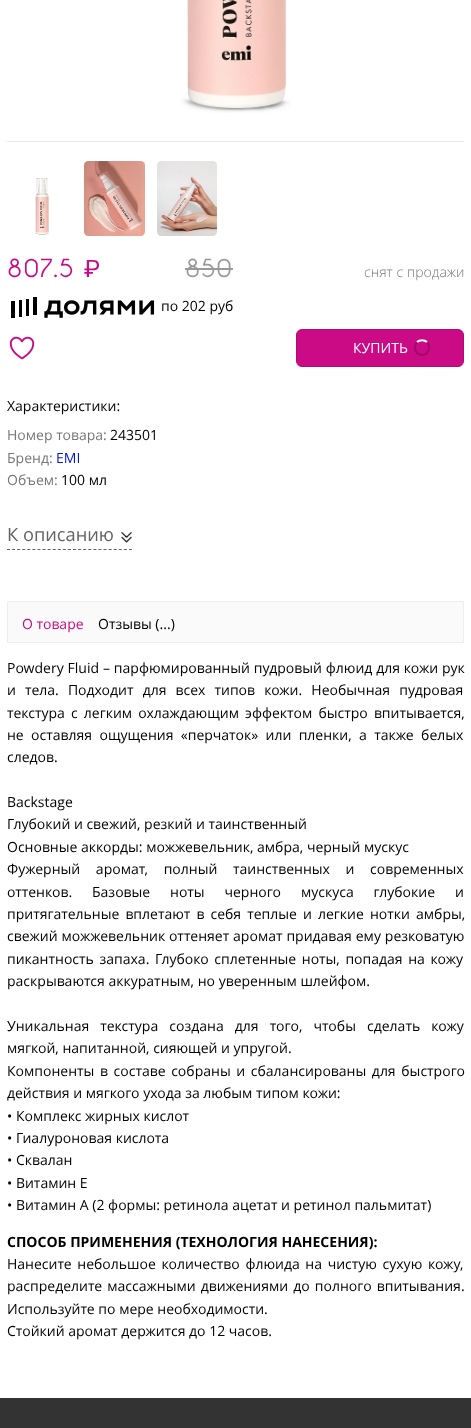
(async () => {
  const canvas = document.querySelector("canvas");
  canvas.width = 471;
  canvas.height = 1428;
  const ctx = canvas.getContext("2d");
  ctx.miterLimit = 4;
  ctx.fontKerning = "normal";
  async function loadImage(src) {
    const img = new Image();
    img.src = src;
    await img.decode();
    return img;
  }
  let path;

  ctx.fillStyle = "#ffffff";
  ctx.fillRect(0, 0, 471, 1428);
  ctx.drawImage(await loadImage("img/1.png"), 181, 0, 110, 113);
  ctx.fillStyle = "#e7e7e7";
  ctx.fillRect(7, 141, 457, 1);
  ctx.drawImage(await loadImage("img/2.png"), 35, 178, 14, 57);
  ctx.drawImage(await loadImage("img/3.png"), 84, 161, 61, 75);
  ctx.drawImage(await loadImage("img/4.png"), 157, 161, 60, 75);
  ctx.fillStyle = "#999999";
  ctx.fillRect(185, 268, 48, 2);
  ctx.drawImage(await loadImage("img/5.png"), 11, 297, 144, 21);
  ctx.drawImage(await loadImage("img/6.png"), 9, 336, 26, 24);
  ctx.fillStyle = "#ca0b85";
  ctx.beginPath();
  ctx.roundRect(296.5, 329.5, 167, 37, 5.5);
  ctx.fill();
  ctx.strokeStyle = "#b20a75";
  ctx.stroke();
  ctx.beginPath();
  ctx.roundRect(415, 340, 14, 15, 7);
  ctx.strokeStyle = "#a2096a";
  ctx.lineWidth = 2;
  ctx.stroke();
  path = new Path2D("M417 342C419.5 339.5 424.5 339.5 427 342");
  ctx.strokeStyle = "#ffffff";
  ctx.stroke(path);
  path = new Path2D("M7 549.5H132");
  ctx.strokeStyle = "#636363";
  ctx.lineWidth = 1;
  ctx.setLineDash([3, 2.08]);
  ctx.stroke(path);
  ctx.drawImage(await loadImage("img/7.png"), 121, 532, 11, 11);
  ctx.fillStyle = "#fafafa";
  ctx.beginPath();
  ctx.rect(7.5, 601.5, 456, 41);
  ctx.fill();
  ctx.strokeStyle = "#eeeeee";
  ctx.setLineDash([]);
  ctx.stroke();
  ctx.fillStyle = "#333333";
  ctx.fillRect(0, 1398, 471, 30);
  ctx.font = "bold 24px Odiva";
  ctx.fillStyle = "#ca0b85";
  ctx.fillText("807.5", 7, 277);
  ctx.font = "24px Roboto";
  ctx.fillText("₽", 84, 277);
  ctx.font = "bold 24px Odiva";
  ctx.fillStyle = "#999999";
  ctx.fillText("850", 185, 277);
  ctx.font = "300 14px Open Sans";
  ctx.fillStyle = "#777777";
  ctx.fillText("снят с продажи", 364, 277);
  ctx.font = "14px Open Sans";
  ctx.fillStyle = "#000000";
  ctx.fillText("по 202 руб", 161, 311);
  ctx.fillStyle = "#ffffff";
  ctx.fillText("КУПИТЬ", 353, 353);
  ctx.fillStyle = "#000000";
  ctx.fillText("Характеристики:", 7, 411);
  ctx.fillStyle = "#777777";
  ctx.fillText("Номер товара:", 7, 440);
  ctx.fillStyle = "#000000";
  ctx.fillText("243501", 110, 440);
  ctx.fillStyle = "#777777";
  ctx.fillText("Бренд:", 7, 463);
  ctx.fillStyle = "#0018d4";
  ctx.fillText("EMI", 56, 463);
  ctx.fillStyle = "#777777";
  ctx.fillText("Объем:", 7, 485);
  ctx.fillStyle = "#000000";
  ctx.fillText("100 мл", 61, 485);
  ctx.font = "18.25px Open Sans";
  ctx.fillStyle = "#636363";
  ctx.fillText("К описанию", 7, 541);
  ctx.font = "14px Open Sans";
  ctx.fillStyle = "#ca0b85";
  ctx.fillText("О товаре", 22, 629);
  ctx.fillStyle = "#000000";
  ctx.fillText("Отзывы (...)", 98, 629);
  ctx.wordSpacing = "0.25px";
  ctx.fillText("Powdery Fluid – парфюмированный пудровый флюид для кожи рук", 7, 673);
  ctx.wordSpacing = "5.5px";
  ctx.fillText("и тела. Подходит для всех типов кожи. Необычная пудровая", 7, 695);
  ctx.wordSpacing = "2.5px";
  ctx.fillText("текстура с легким охлаждающим эффектом быстро впитывается,", 7, 718);
  ctx.wordSpacing = "3.75px";
  ctx.fillText("не оставляя ощущения «перчаток» или пленки, а также белых", 7, 740);
  ctx.wordSpacing = "0px";
  for (const [text, x, y] of [
    ["следов.", 7, 762],
    ["Backstage", 7, 807],
    ["Глубокий и свежий, резкий и таинственный", 7, 829],
    ["Основные аккорды: можжевельник, амбра, черный мускус", 7, 852],
  ]) {
    ctx.fillText(text, x, y);
  }
  ctx.wordSpacing = "12px";
  ctx.fillText("Фужерный аромат, полный таинственных и современных", 7, 874);
  ctx.wordSpacing = "16.25px";
  ctx.fillText("оттенков. Базовые ноты черного мускуса глубокие и", 7, 897);
  ctx.wordSpacing = "2.5px";
  ctx.fillText("притягательные вплетают в себя теплые и легкие нотки амбры,", 7, 919);
  ctx.wordSpacing = "0.25px";
  ctx.fillText("свежий можжевельник оттеняет аромат придавая ему резковатую", 7, 941);
  ctx.wordSpacing = "2px";
  ctx.fillText("пикантность запаха. Глубоко сплетенные ноты, попадая на кожу", 7, 964);
  ctx.wordSpacing = "0px";
  ctx.fillText("раскрываются аккуратным, но уверенным шлейфом.", 7, 986);
  ctx.wordSpacing = "7.5px";
  ctx.fillText("Уникальная текстура создана для того, чтобы сделать кожу", 7, 1031);
  ctx.wordSpacing = "0px";
  ctx.fillText("мягкой, напитанной, сияющей и упругой.", 7, 1053);
  ctx.wordSpacing = "2px";
  ctx.fillText("Компоненты в составе собраны и сбалансированы для быстрого", 7, 1076);
  ctx.wordSpacing = "0px";
  for (const [text, x, y] of [
    ["действия и мягкого ухода за любым типом кожи:", 7, 1098],
    ["• Комплекс жирных кислот", 7, 1121],
    ["• Гиалуроновая кислота", 7, 1143],
    ["• Сквалан", 7, 1165],
    ["• Витамин Е", 7, 1188],
    ["• Витамин А (2 формы: ретинола ацетат и ретинол пальмитат)", 7, 1210],
  ]) {
    ctx.fillText(text, x, y);
  }
  ctx.font = "bold 14px Open Sans";
  ctx.fillText("СПОСОБ ПРИМЕНЕНИЯ (ТЕХНОЛОГИЯ НАНЕСЕНИЯ):", 7, 1247);
  ctx.wordSpacing = "2px";
  ctx.font = "14px Open Sans";
  ctx.fillText("Нанесите небольшое количество флюида на чистую сухую кожу,", 7, 1269);
  ctx.wordSpacing = "1.5px";
  ctx.fillText("распределите массажными движениями до полного впитывания.", 7, 1291);
  ctx.wordSpacing = "0px";
  ctx.fillText("Используйте по мере необходимости.", 7, 1314);
  ctx.fillText("Стойкий аромат держится до 12 часов.", 7, 1336);
})();
